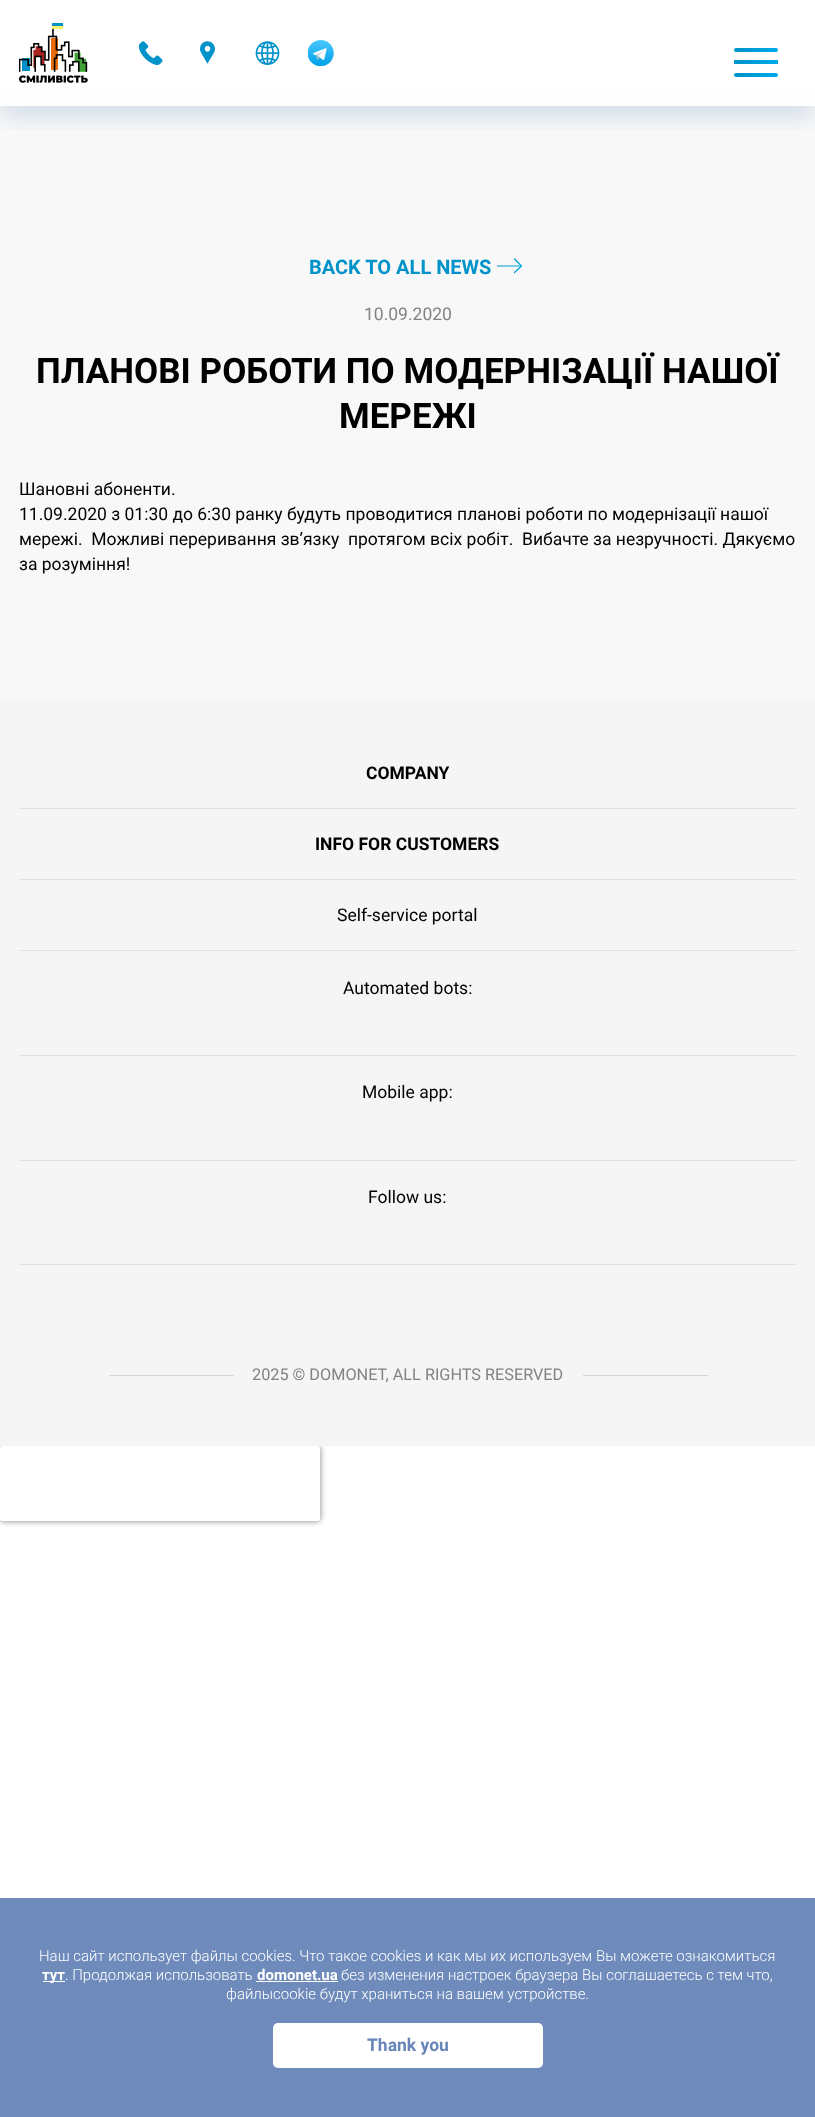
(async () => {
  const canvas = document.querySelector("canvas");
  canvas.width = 815;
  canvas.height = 2117;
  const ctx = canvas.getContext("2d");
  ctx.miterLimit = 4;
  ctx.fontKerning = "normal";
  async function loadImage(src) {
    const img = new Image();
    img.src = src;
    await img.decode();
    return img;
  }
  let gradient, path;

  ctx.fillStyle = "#ffffff";
  ctx.fillRect(0, 0, 815, 2117);
  ctx.fillStyle = "#f8f8f8";
  ctx.fillRect(0, 66, 815, 635);
  ctx.save();
  ctx.beginPath();
  ctx.rect(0, 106, 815, 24);
  ctx.clip();
  ctx.fillStyle = "rgba(3, 64, 146, 0.15)";
  ctx.filter = "blur(12.5px)";
  ctx.beginPath();
  ctx.rect(0, 10, 815, 106);
  ctx.fill();
  ctx.filter = "none";
  ctx.restore();
  gradient = ctx.createLinearGradient(408, 0, 408, 106);
  gradient.addColorStop(0.6, "#ffffff");
  gradient.addColorStop(1, "rgba(255, 255, 255, 0.9)");
  ctx.fillStyle = gradient;
  ctx.fillRect(0, 66, 815, 40);
  ctx.drawImage(await loadImage("img/1.png"), 19, 23, 69, 60);
  ctx.drawImage(await loadImage("img/2.png"), 139, 41, 24, 24);
  ctx.drawImage(await loadImage("img/3.png"), 200, 41, 15, 23);
  ctx.drawImage(await loadImage("img/4.png"), 255, 41, 25, 24);
  ctx.drawImage(await loadImage("img/5.png"), 308, 40, 26, 26);
  gradient = ctx.createLinearGradient(734, 62, 778, 62);
  gradient.addColorStop(0, "#0093c9");
  gradient.addColorStop(1, "#00aae8");
  ctx.fillStyle = gradient;
  ctx.fillRect(734, 60, 44, 4);
  gradient = ctx.createLinearGradient(734, 49, 778, 49);
  gradient.addColorStop(0, "#0093c9");
  gradient.addColorStop(1, "#00aae8");
  ctx.fillStyle = gradient;
  ctx.beginPath();
  ctx.roundRect(734, 48, 44, 4, 2);
  ctx.fill();
  gradient = ctx.createLinearGradient(734, 74, 778, 74);
  gradient.addColorStop(0, "#0093c9");
  gradient.addColorStop(1, "#00aae8");
  ctx.fillStyle = gradient;
  ctx.beginPath();
  ctx.roundRect(734, 73, 44, 4, 2);
  ctx.fill();
  path = new Path2D("M497.5 266H521");
  gradient = ctx.createLinearGradient(498, 266, 521, 266);
  gradient.addColorStop(0, "#0093c9");
  gradient.addColorStop(1, "#00aae8");
  ctx.strokeStyle = gradient;
  ctx.lineWidth = 1.2;
  ctx.lineCap = "round";
  ctx.lineJoin = "round";
  ctx.stroke(path);
  path = new Path2D("M514.5 259L521.5 266L514.5 272.5");
  gradient = ctx.createLinearGradient(514, 266, 521, 266);
  gradient.addColorStop(0, "#0093c9");
  gradient.addColorStop(1, "#00aae8");
  ctx.strokeStyle = gradient;
  ctx.stroke(path);
  ctx.save();
  path = new Path2D("M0 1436H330V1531H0ZM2.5 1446H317.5C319 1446 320 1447 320 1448.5V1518.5C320 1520 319 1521 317.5 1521H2.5C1 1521 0 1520 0 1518.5V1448.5C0 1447 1 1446 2.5 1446Z");
  ctx.clip(path, "evenodd");
  ctx.fillStyle = "#808080";
  ctx.filter = "blur(3px)";
  ctx.beginPath();
  ctx.roundRect(0, 1446, 320, 75, 2.5);
  ctx.fill();
  ctx.filter = "none";
  ctx.restore();
  for (const [x, y, w, h, color] of [
    [0, 701, 815, 745, "#f5f5f5"],
    [19, 808, 777, 1, "#e0e0e0"],
    [19, 879, 777, 1, "#e0e0e0"],
    [19, 950, 777, 1, "#e0e0e0"],
    [19, 1055, 777, 1, "#e0e0e0"],
    [19, 1160, 777, 1, "#e0e0e0"],
    [19, 1264, 777, 1, "#e0e0e0"],
    [109, 1375, 125, 1, "#d6d6d6"],
    [583, 1375, 125, 1, "#d6d6d6"],
    [0, 1898, 815, 219, "#6e8bbc"],
    [43, 1981, 22, 1, "#ffffff"],
    [256, 1981, 82, 1, "#ffffff"],
  ]) {
    ctx.fillStyle = color;
    ctx.fillRect(x, y, w, h);
  }
  ctx.beginPath();
  ctx.roundRect(273, 2023, 270, 45, 5);
  ctx.fill();
  ctx.font = "bold 20px Roboto";
  ctx.fillStyle = "#0093c9";
  ctx.fillText("BACK TO ALL NEWS", 309, 274);
  ctx.font = "17.5px Roboto";
  ctx.fillStyle = "#828282";
  ctx.fillText("10.09.2020", 364, 320);
  ctx.font = "bold 35px Roboto";
  ctx.fillStyle = "#000000";
  ctx.fillText("ПЛАНОВІ РОБОТИ ПО МОДЕРНІЗАЦІЇ НАШОЇ", 36, 383);
  ctx.fillText("МЕРЕЖІ", 339, 428);
  ctx.font = "17.5px Roboto";
  for (const [text, x, y] of [
    ["Шановні абоненти.", 19, 495],
    ["11.09.2020 з 01:30 до 6:30 ранку будуть проводитися планові роботи по модернізації нашої", 19, 520],
    ["мережі.  Можливі переривання звʼязку  протягом всіх робіт.  Вибачте за незручності. Дякуємо", 19, 545],
    ["за розуміння!", 19, 570],
  ]) {
    ctx.fillText(text, x, y);
  }
  ctx.font = "bold 17.5px Roboto";
  ctx.fillText("COMPANY", 366, 779);
  ctx.fillText("INFO FOR CUSTOMERS", 315, 850);
  ctx.font = "17.5px Roboto";
  for (const [text, x, y] of [
    ["Self-service portal", 337, 921],
    ["Automated bots:", 343, 994],
    ["Mobile app:", 362, 1098],
    ["Follow us:", 368, 1203],
  ]) {
    ctx.fillText(text, x, y);
  }
  ctx.font = "16.25px Roboto";
  ctx.fillStyle = "#828282";
  ctx.fillText("2025 © DOMONET, ALL RIGHTS RESERVED", 252, 1380);
  ctx.font = "300 15px Roboto";
  ctx.fillStyle = "#ffffff";
  ctx.fillText("Наш сайт использует файлы cookies. Что такое cookies и как мы их используем Вы можете ознакомиться", 39, 1961);
  ctx.font = "bold 15px Roboto";
  ctx.fillText("тут", 42, 1980);
  ctx.font = "300 15px Roboto";
  ctx.fillText(". Продолжая использовать", 65, 1980);
  ctx.font = "bold 15px Roboto";
  ctx.fillText("domonet.ua", 257, 1980);
  ctx.font = "300 15px Roboto";
  ctx.fillText("без изменения настроек браузера Вы соглашаетесь с тем что,", 341, 1980);
  ctx.fillText("файлыcookie будут храниться на вашем устройстве.", 226, 1999);
  ctx.font = "bold 17.5px Roboto";
  ctx.fillStyle = "#6785b8";
  ctx.fillText("Thank you", 367, 2051);
})();
